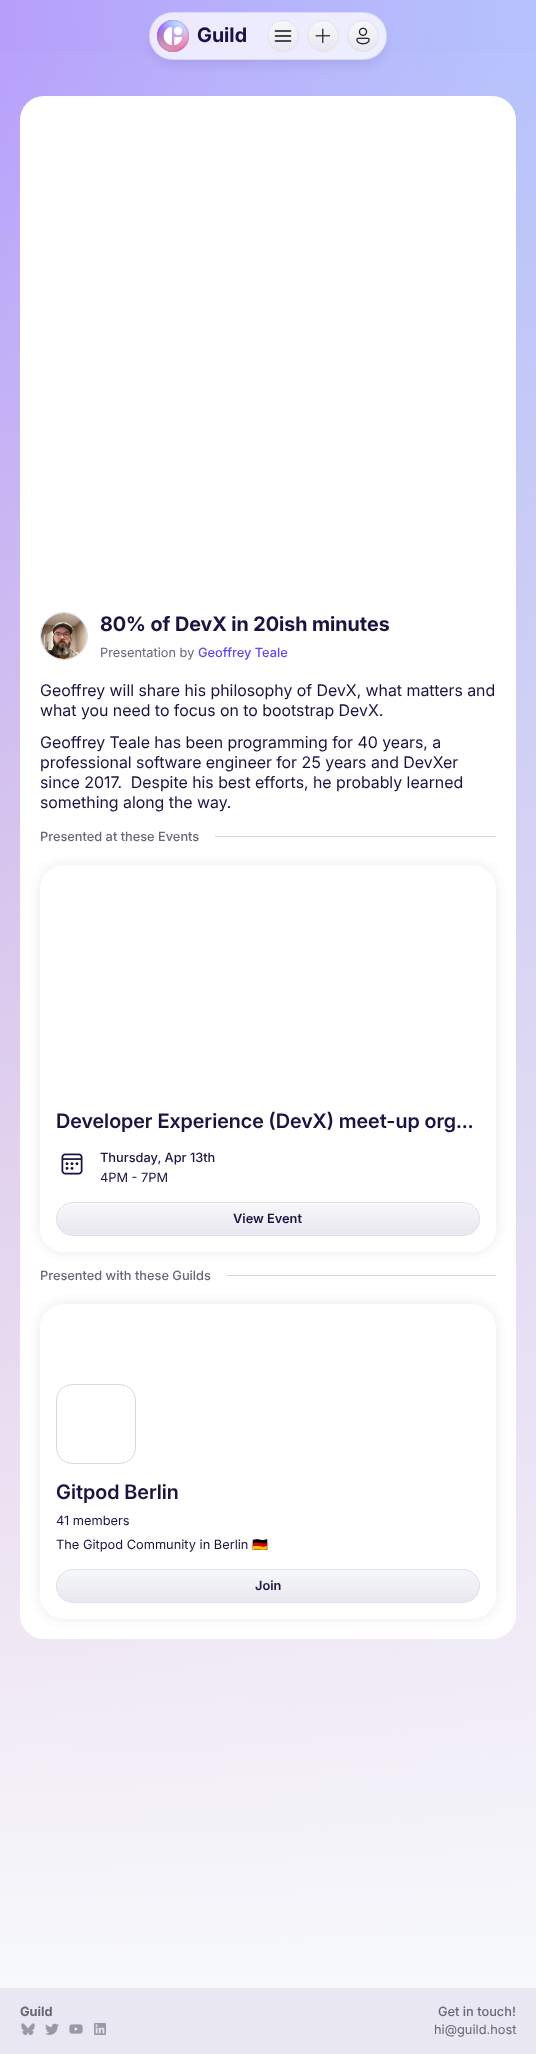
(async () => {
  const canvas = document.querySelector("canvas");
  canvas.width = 536;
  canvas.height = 2054;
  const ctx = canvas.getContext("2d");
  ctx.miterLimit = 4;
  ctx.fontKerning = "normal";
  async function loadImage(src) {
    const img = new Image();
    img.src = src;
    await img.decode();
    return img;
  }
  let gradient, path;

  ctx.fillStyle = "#ffffff";
  ctx.fillRect(0, 0, 536, 2054);
  gradient = ctx.createRadialGradient(-2205, 342.3, 0, -2205, 342.3, 3581);
  gradient.addColorStop(0, "#8058f1");
  gradient.addColorStop(1, "#e3afff");
  ctx.fillStyle = gradient;
  ctx.beginPath();
  ctx.rect(0, 0, 536, 1976);
  ctx.save();
  ctx.clip();
  ctx.scale(1, 3808 / 3581);
  ctx.fillRect(0, 0, 536, 1932);
  ctx.restore();
  gradient = ctx.createRadialGradient(3080, 2789.48, 0, 3080, 2789.48, 3820);
  gradient.addColorStop(0, "rgba(228, 79, 79, 0.7)");
  gradient.addColorStop(1, "rgba(228, 79, 79, 0)");
  ctx.fillStyle = gradient;
  ctx.beginPath();
  ctx.rect(0, 78, 536, 1898);
  ctx.save();
  ctx.clip();
  ctx.scale(1, 2643 / 3820);
  ctx.fillRect(0, 0, 536, 2969);
  ctx.restore();
  gradient = ctx.createRadialGradient(-2714, 2181.72, 0, -2714, 2181.72, 3435);
  gradient.addColorStop(0, "rgba(228, 213, 79, 0.7)");
  gradient.addColorStop(1, "rgba(228, 213, 79, 0)");
  ctx.fillStyle = gradient;
  ctx.beginPath();
  ctx.rect(0, 235, 536, 1741);
  ctx.save();
  ctx.clip();
  ctx.scale(1, 3130 / 3435);
  ctx.fillRect(0, 0, 536, 2255);
  ctx.restore();
  gradient = ctx.createRadialGradient(1294, -11.83, 0, 1294, -11.83, 1581);
  gradient.addColorStop(0, "rgba(97, 227, 255, 0.7)");
  gradient.addColorStop(1, "rgba(97, 227, 255, 0)");
  ctx.fillStyle = gradient;
  ctx.beginPath();
  ctx.rect(0, 0, 536, 1976);
  ctx.save();
  ctx.clip();
  ctx.scale(1, 2940 / 1581);
  ctx.fillRect(0, 0, 536, 1105);
  ctx.restore();
  gradient = ctx.createRadialGradient(2838, -111.64, 0, 2838, -111.64, 3091);
  gradient.addColorStop(0, "rgba(255, 255, 255, 0.7)");
  gradient.addColorStop(1, "rgba(255, 255, 255, 0)");
  ctx.fillStyle = gradient;
  ctx.beginPath();
  ctx.rect(0, 0, 536, 1976);
  ctx.save();
  ctx.clip();
  ctx.scale(1, 4956 / 3091);
  ctx.fillRect(0, 0, 536, 1282);
  ctx.restore();
  gradient = ctx.createLinearGradient(268, 0, 268, 1988);
  gradient.addColorStop(0, "rgba(247, 249, 252, 0)");
  gradient.addColorStop(1, "#f7f9fc");
  ctx.fillStyle = gradient;
  ctx.fillRect(0, 52, 536, 1936);
  ctx.save();
  path = new Path2D("M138 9H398V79H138ZM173 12H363C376.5 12 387 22.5 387 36C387 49.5 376.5 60 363 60H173C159.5 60 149 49.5 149 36C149 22.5 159.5 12 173 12Z");
  ctx.clip(path, "evenodd");
  ctx.fillStyle = "rgba(27, 19, 64, 0.08)";
  ctx.filter = "blur(4px)";
  ctx.beginPath();
  ctx.roundRect(151, 22, 234, 44, 22);
  ctx.fill();
  ctx.filter = "none";
  ctx.restore();
  ctx.fillStyle = "rgba(255, 255, 255, 0.75)";
  ctx.beginPath();
  ctx.roundRect(149, 12, 238, 48, 24);
  ctx.fill();
  ctx.beginPath();
  ctx.roundRect(149.5, 12.5, 237, 47, 23.5);
  ctx.strokeStyle = "rgba(19, 0, 102, 0.08)";
  ctx.stroke();
  ctx.drawImage(await loadImage("img/1.png"), 157, 20, 32, 32);
  ctx.drawImage(await loadImage("img/2.png"), 163, 27, 9, 19);
  ctx.drawImage(await loadImage("img/3.png"), 174, 26, 8, 9);
  ctx.drawImage(await loadImage("img/4.png"), 174, 37, 9, 9);
  ctx.save();
  ctx.beginPath();
  ctx.roundRect(267, 20, 32, 32, 16);
  ctx.clip();
  gradient = ctx.createLinearGradient(283, 21, 283, 51);
  gradient.addColorStop(0, "#f6f8f9");
  gradient.addColorStop(1, "#e9e7f1");
  ctx.fillStyle = gradient;
  ctx.fillRect(267, 21, 32, 30);
  ctx.restore();
  ctx.beginPath();
  ctx.arc(283, 36, 15.5, 0, Math.PI * 2);
  ctx.strokeStyle = "#e2e1eb";
  ctx.stroke();
  ctx.drawImage(await loadImage("img/5.png"), 274, 30, 18, 12);
  ctx.save();
  ctx.beginPath();
  ctx.roundRect(307, 20, 32, 32, 16);
  ctx.clip();
  gradient = ctx.createLinearGradient(323, 21, 323, 51);
  gradient.addColorStop(0, "#f6f8f9");
  gradient.addColorStop(1, "#e9e7f1");
  ctx.fillStyle = gradient;
  ctx.fillRect(307, 21, 32, 30);
  ctx.restore();
  ctx.beginPath();
  ctx.arc(323, 36, 15.5, 0, Math.PI * 2);
  ctx.stroke();
  ctx.drawImage(await loadImage("img/6.png"), 315, 28, 15, 15);
  ctx.save();
  ctx.beginPath();
  ctx.roundRect(347, 20, 32, 32, 16);
  ctx.clip();
  gradient = ctx.createLinearGradient(363, 21, 363, 51);
  gradient.addColorStop(0, "#f6f8f9");
  gradient.addColorStop(1, "#e9e7f1");
  ctx.fillStyle = gradient;
  ctx.fillRect(347, 21, 32, 30);
  ctx.restore();
  ctx.beginPath();
  ctx.arc(363, 36, 15.5, 0, Math.PI * 2);
  ctx.stroke();
  ctx.drawImage(await loadImage("img/7.png"), 356, 27, 14, 18);
  ctx.fillStyle = "#ffffff";
  ctx.beginPath();
  ctx.roundRect(20, 96, 496, 1543, 24);
  ctx.fill();
  ctx.beginPath();
  ctx.arc(64, 636, 23.5, 0, Math.PI * 2);
  ctx.strokeStyle = "#d9d6e7";
  ctx.stroke();
  ctx.drawImage(await loadImage("img/8.png"), 41, 613, 46, 46);
  ctx.fillStyle = "#d5d3dd";
  ctx.fillRect(215, 836, 281, 1);
  ctx.fillStyle = "rgba(10, 37, 64, 0.1)";
  ctx.filter = "blur(6px)";
  ctx.beginPath();
  ctx.roundRect(40, 865, 456, 387, 24);
  ctx.fill();
  ctx.filter = "none";
  ctx.fillStyle = "#ffffff";
  ctx.beginPath();
  ctx.roundRect(40, 865, 456, 387, 24);
  ctx.fill();
  ctx.drawImage(await loadImage("img/9.png"), 61, 1153, 22, 22);
  ctx.save();
  ctx.beginPath();
  ctx.roundRect(56, 1202, 424, 34, 17);
  ctx.clip();
  gradient = ctx.createLinearGradient(268, 1203, 268, 1235);
  gradient.addColorStop(0, "#f6f8f9");
  gradient.addColorStop(1, "#e9e7f1");
  ctx.fillStyle = gradient;
  ctx.fillRect(56, 1203, 424, 32);
  ctx.restore();
  ctx.beginPath();
  ctx.roundRect(56.5, 1202.5, 423, 33, 16.5);
  ctx.strokeStyle = "#e2e1eb";
  ctx.stroke();
  ctx.fillStyle = "#d5d3dd";
  ctx.fillRect(227, 1275, 269, 1);
  ctx.fillStyle = "rgba(10, 37, 64, 0.1)";
  ctx.filter = "blur(6px)";
  ctx.beginPath();
  ctx.roundRect(40, 1304, 456, 315, 24);
  ctx.fill();
  ctx.filter = "none";
  ctx.fillStyle = "#ffffff";
  ctx.beginPath();
  ctx.roundRect(40, 1304, 456, 315, 24);
  ctx.fill();
  ctx.beginPath();
  ctx.roundRect(56.5, 1384.5, 79, 79, 15.5);
  ctx.strokeStyle = "#d9d6e7";
  ctx.stroke();
  ctx.save();
  ctx.beginPath();
  ctx.roundRect(56, 1569, 424, 34, 17);
  ctx.clip();
  gradient = ctx.createLinearGradient(268, 1570, 268, 1602);
  gradient.addColorStop(0, "#f6f8f9");
  gradient.addColorStop(1, "#e9e7f1");
  ctx.fillStyle = gradient;
  ctx.fillRect(56, 1570, 424, 32);
  ctx.restore();
  ctx.beginPath();
  ctx.roundRect(56.5, 1569.5, 423, 33, 16.5);
  ctx.strokeStyle = "#e2e1eb";
  ctx.stroke();
  ctx.fillStyle = "#e9e7f1";
  ctx.fillRect(0, 1988, 536, 66);
  ctx.drawImage(await loadImage("img/10.png"), 21, 2023, 14, 13);
  ctx.drawImage(await loadImage("img/11.png"), 45, 2023, 14, 12);
  ctx.drawImage(await loadImage("img/12.png"), 69, 2024, 14, 10);
  ctx.drawImage(await loadImage("img/13.png"), 94, 2023, 12, 12);
  ctx.font = "bold 20px 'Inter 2'";
  ctx.fillStyle = "#1b1340";
  ctx.fillText("Guild", 197, 42);
  ctx.fillText("80% of DevX in 20ish minutes", 100, 631);
  ctx.font = "12.8px 'Inter 2'";
  ctx.fillStyle = "#696676";
  ctx.fillText("Presentation by", 100, 657);
  ctx.font = "500 12.8px Inter";
  ctx.fillStyle = "#6647ed";
  ctx.fillText("Geoffrey Teale", 198, 657);
  ctx.font = "16px Inter";
  ctx.fillStyle = "#1b1340";
  for (const [text, x, y] of [
    ["Geoffrey will share his philosophy of DevX, what matters and", 40, 696],
    ["what you need to focus on to bootstrap DevX.", 40, 716],
    ["Geoffrey Teale has been programming for 40 years, a", 40, 748],
    ["professional software engineer for 25 years and DevXer", 40, 768],
    ["since 2017.  Despite his best efforts, he probably learned", 40, 788],
    ["something along the way.", 40, 808],
  ]) {
    ctx.fillText(text, x, y);
  }
  ctx.font = "500 12.8px Inter";
  ctx.fillStyle = "#696676";
  ctx.fillText("Presented at these Events", 40, 841);
  ctx.font = "600 20px Inter";
  ctx.fillStyle = "#1b1340";
  ctx.fillText("Developer Experience (DevX) meet-up org…", 56, 1128);
  ctx.font = "500 12.8px Inter";
  ctx.fillText("Thursday, Apr 13th", 100, 1162);
  ctx.font = "12.8px 'Inter 2'";
  ctx.fillText("4PM - 7PM", 100, 1182);
  ctx.font = "600 12.8px 'Inter 2'";
  ctx.fillText("View Event", 233, 1223);
  ctx.font = "500 12.8px Inter";
  ctx.fillStyle = "#696676";
  ctx.fillText("Presented with these Guilds", 40, 1280);
  ctx.font = "600 20px Inter";
  ctx.fillStyle = "#1b1340";
  ctx.fillText("Gitpod Berlin", 56, 1499);
  ctx.font = "12.8px 'Inter 2'";
  ctx.fillText("41 members", 56, 1525);
  ctx.fillText("The Gitpod Community in Berlin", 56, 1549);
  ctx.font = "12.8px Noto Color Emoji";
  ctx.fillText("🇩🇪", 252, 1549);
  ctx.font = "600 12.8px 'Inter 2'";
  ctx.fillText("Join", 255, 1590);
  ctx.font = "bold 12.8px Inter";
  ctx.fillStyle = "#696676";
  ctx.fillText("Guild", 20, 2016);
  ctx.font = "500 12.8px Inter";
  ctx.fillText("Get in touch!", 438, 2016);
  ctx.font = "12.8px 'Inter 2'";
  ctx.fillText("hi@guild.host", 434, 2034);
})();
